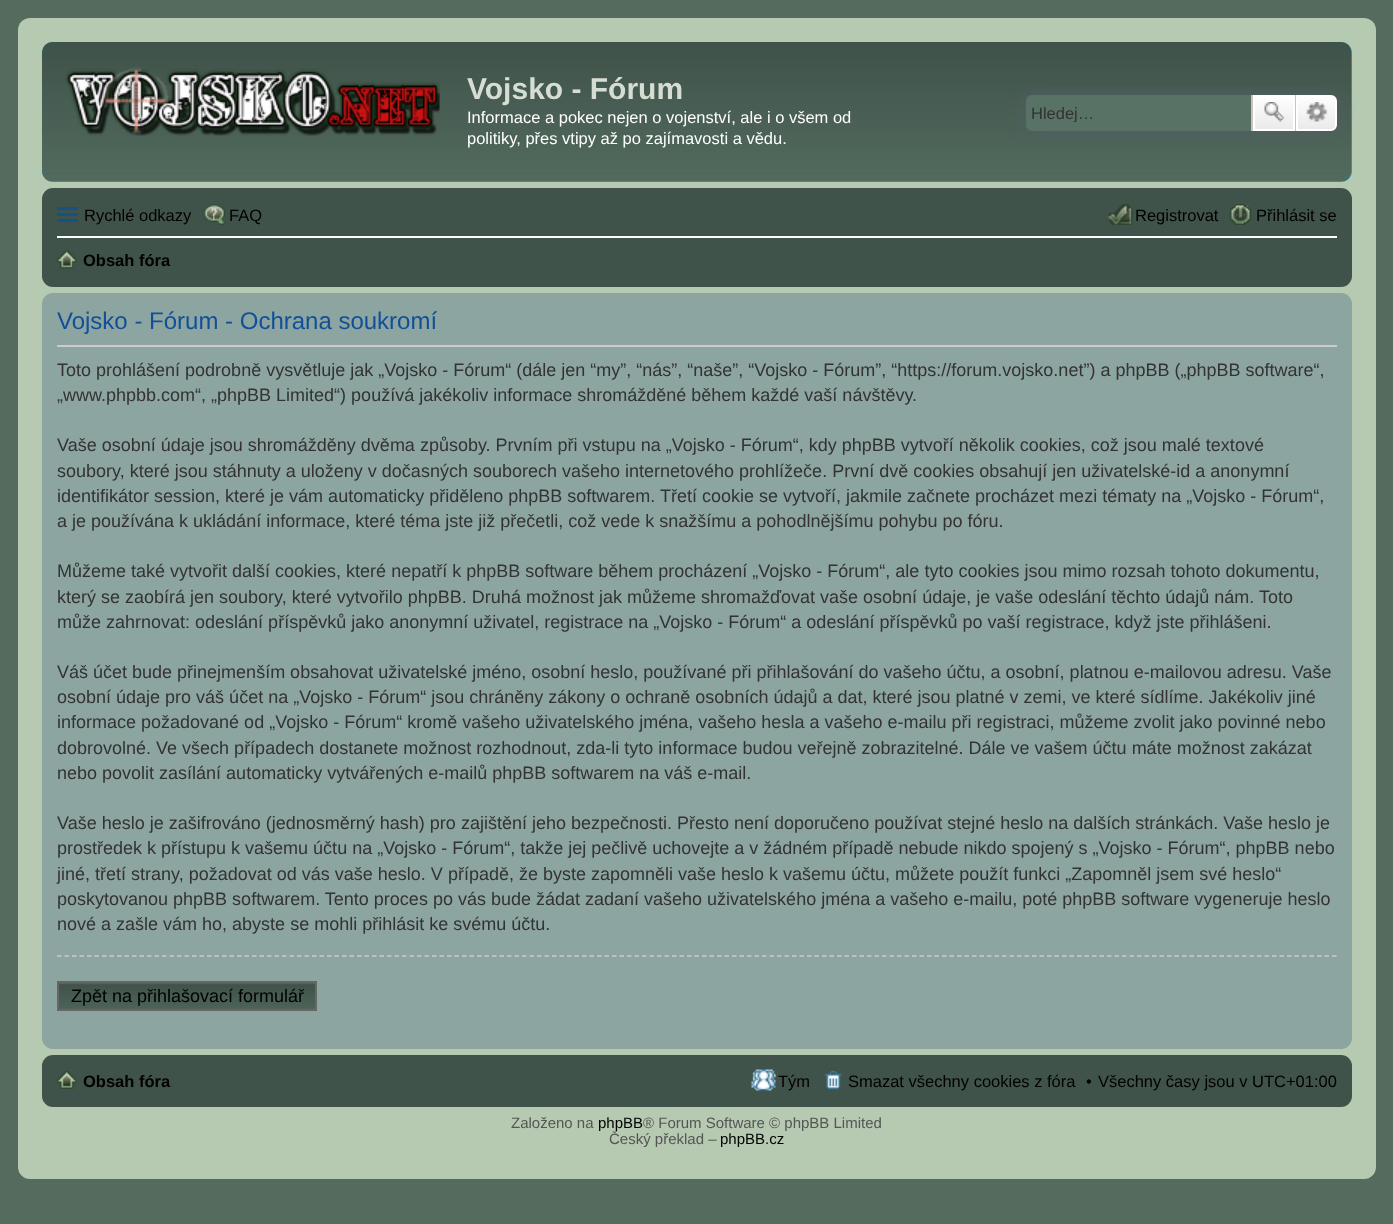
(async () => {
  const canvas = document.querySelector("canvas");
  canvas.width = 1393;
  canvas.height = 1224;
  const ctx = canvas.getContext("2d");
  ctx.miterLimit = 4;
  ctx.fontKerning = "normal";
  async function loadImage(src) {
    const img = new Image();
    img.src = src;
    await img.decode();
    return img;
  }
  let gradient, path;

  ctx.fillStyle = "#546b5e";
  ctx.fillRect(0, 0, 1393, 1224);
  ctx.fillStyle = "#b6cab2";
  ctx.beginPath();
  ctx.roundRect(18, 18, 1358, 1161, 12);
  ctx.fill();
  ctx.fillStyle = "#12a3eb";
  ctx.beginPath();
  ctx.roundRect(42, 42, 1310, 140, 11);
  ctx.fill();
  ctx.drawImage(await loadImage("img/1.png"), 42, 42, 1310, 140);
  ctx.drawImage(await loadImage("img/2.png"), 65, 67, 375, 69);
  ctx.fillStyle = "#525e67";
  ctx.filter = "blur(7.5px)";
  ctx.beginPath();
  ctx.roundRect(1026, 95, 311, 36, 6);
  ctx.fill();
  ctx.filter = "none";
  ctx.fillStyle = "#597266";
  ctx.beginPath();
  ctx.roundRect(1026, 95, 225, 36, [6, 0, 0, 6]);
  ctx.fill();
  gradient = ctx.createLinearGradient(1274, 95, 1274, 131);
  gradient.addColorStop(0, "#ffffff");
  gradient.addColorStop(1, "#e9e9e9");
  ctx.fillStyle = gradient;
  ctx.fillRect(1255, 97, 38, 32);
  ctx.strokeStyle = "#ffffff";
  ctx.lineWidth = 2;
  ctx.strokeRect(1254, 96, 40, 34);
  ctx.fillStyle = "#c7c3bf";
  ctx.fillRect(1295, 95, 1, 36);
  ctx.fillRect(1251, 95, 2, 36);
  ctx.drawImage(await loadImage("img/3.png"), 1264, 102, 21, 20);
  gradient = ctx.createLinearGradient(1316, 95, 1316, 131);
  gradient.addColorStop(0, "#ffffff");
  gradient.addColorStop(1, "#e9e9e9");
  ctx.fillStyle = gradient;
  ctx.beginPath();
  ctx.roundRect(1297, 96, 39, 34, [0, 5, 5, 0]);
  ctx.fill();
  ctx.stroke();
  ctx.drawImage(await loadImage("img/4.png"), 1306, 102, 22, 20);
  ctx.fillStyle = "#40534a";
  ctx.beginPath();
  ctx.roundRect(42, 188, 1310, 99, 11);
  ctx.fill();
  for (const [x, y, w, h, color] of [
    [57, 207, 21, 3, "#105289"],
    [57, 213, 21, 3, "#105289"],
    [57, 219, 21, 3, "#105289"],
  ]) {
    ctx.fillStyle = color;
    ctx.fillRect(x, y, w, h);
  }
  ctx.drawImage(await loadImage("img/5.png"), 202, 204, 24, 21);
  ctx.drawImage(await loadImage("img/6.png"), 1108, 204, 25, 21);
  ctx.drawImage(await loadImage("img/7.png"), 1229, 204, 23, 21);
  ctx.fillStyle = "#ffffff";
  ctx.fillRect(57, 236, 1280, 2);
  ctx.drawImage(await loadImage("img/8.png"), 57, 250, 20, 19);
  ctx.fillStyle = "#8da5a1";
  ctx.beginPath();
  ctx.roundRect(42, 293, 1310, 756, 11);
  ctx.fill();
  ctx.fillStyle = "#cccccc";
  ctx.fillRect(57, 345, 1280, 2);
  path = new Path2D("M57 956H1336.5");
  ctx.strokeStyle = "#cccccc";
  ctx.lineWidth = 1.5;
  ctx.setLineDash([4.5, 3]);
  ctx.stroke(path);
  ctx.drawImage(await loadImage("img/9.png"), 59, 983, 256, 26);
  ctx.strokeStyle = "#666666";
  ctx.lineWidth = 2;
  ctx.setLineDash([]);
  ctx.strokeRect(58, 982, 258, 28);
  ctx.fillStyle = "#40534a";
  ctx.beginPath();
  ctx.roundRect(42, 1055, 1310, 52, 11);
  ctx.fill();
  ctx.drawImage(await loadImage("img/10.png"), 57, 1071, 20, 18);
  ctx.drawImage(await loadImage("img/11.png"), 751, 1069, 25, 22);
  ctx.drawImage(await loadImage("img/12.png"), 824, 1070, 18, 20);
  ctx.font = "bold 30px Liberation Sans";
  ctx.fillStyle = "#d6ded4";
  ctx.fillText("Vojsko - Fórum", 467, 99);
  ctx.font = "16.5px Liberation Sans";
  ctx.fillStyle = "#ffffff";
  ctx.fillText("Informace a pokec nejen o vojenství, ale i o všem od", 467, 123);
  ctx.fillText("politiky, přes vtipy až po zajímavosti a vědu.", 467, 144);
  ctx.save();
  ctx.beginPath();
  ctx.rect(1031, 104, 198, 18);
  ctx.clip();
  ctx.fillStyle = "#333333";
  ctx.fillText("Hledej…", 1031, 119);
  ctx.restore();
  ctx.fillStyle = "#000000";
  for (const [text, x, y] of [
    ["Rychlé odkazy", 84, 221],
    ["FAQ", 229, 221],
    ["Registrovat", 1135, 221],
    ["Přihlásit se", 1256, 221],
  ]) {
    ctx.fillText(text, x, y);
  }
  ctx.font = "bold 16.5px Liberation Sans";
  ctx.fillText("Obsah fóra", 83, 266);
  ctx.font = "24px Liberation Sans";
  ctx.fillStyle = "#115098";
  ctx.fillText("Vojsko - Fórum - Ochrana soukromí", 57, 329);
  ctx.font = "18px Liberation Sans";
  ctx.fillStyle = "#333333";
  for (const [text, x, y] of [
    ["Toto prohlášení podrobně vysvětluje jak „Vojsko - Fórum“ (dále jen “my”, “nás”, “naše”, “Vojsko - Fórum”, “https://forum.vojsko.net”) a phpBB („phpBB software“,", 57, 376],
    ["„www.phpbb.com“, „phpBB Limited“) používá jakékoliv informace shromážděné během každé vaší návštěvy.", 57, 401],
    ["Vaše osobní údaje jsou shromážděny dvěma způsoby. Prvním při vstupu na „Vojsko - Fórum“, kdy phpBB vytvoří několik cookies, což jsou malé textové", 57, 451],
    ["soubory, které jsou stáhnuty a uloženy v dočasných souborech vašeho internetového prohlížeče. První dvě cookies obsahují jen uživatelské-id a anonymní", 57, 477],
    ["identifikátor session, které je vám automaticky přiděleno phpBB softwarem. Třetí cookie se vytvoří, jakmile začnete procházet mezi tématy na „Vojsko - Fórum“,", 57, 502],
    ["a je používána k ukládání informace, které téma jste již přečetli, což vede k snažšímu a pohodlnějšímu pohybu po fóru.", 57, 527],
    ["Můžeme také vytvořit další cookies, které nepatří k phpBB software během procházení „Vojsko - Fórum“, ale tyto cookies jsou mimo rozsah tohoto dokumentu,", 57, 577],
    ["který se zaobírá jen soubory, které vytvořilo phpBB. Druhá možnost jak můžeme shromažďovat vaše osobní údaje, je vaše odeslání těchto údajů nám. Toto", 57, 603],
    ["může zahrnovat: odeslání příspěvků jako anonymní uživatel, registrace na „Vojsko - Fórum“ a odeslání příspěvků po vaší registrace, když jste přihlášeni.", 57, 628],
    ["Váš účet bude přinejmenším obsahovat uživatelské jméno, osobní heslo, používané při přihlašování do vašeho účtu, a osobní, platnou e-mailovou adresu. Vaše", 57, 678],
    ["osobní údaje pro váš účet na „Vojsko - Fórum“ jsou chráněny zákony o ochraně osobních údajů a dat, které jsou platné v zemi, ve které sídlíme. Jakékoliv jiné", 57, 703],
    ["informace požadované od „Vojsko - Fórum“ kromě vašeho uživatelského jména, vašeho hesla a vašeho e-mailu při registraci, můžeme zvolit jako povinné nebo", 57, 728],
    ["dobrovolné. Ve všech případech dostanete možnost rozhodnout, zda-li tyto informace budou veřejně zobrazitelné. Dále ve vašem účtu máte možnost zakázat", 57, 754],
    ["nebo povolit zasílání automaticky vytvářených e-mailů phpBB softwarem na váš e-mail.", 57, 779],
    ["Vaše heslo je zašifrováno (jednosměrný hash) pro zajištění jeho bezpečnosti. Přesto není doporučeno používat stejné heslo na dalších stránkách. Vaše heslo je", 57, 829],
    ["prostředek k přístupu k vašemu účtu na „Vojsko - Fórum“, takže jej pečlivě uchovejte a v žádném případě nebude nikdo spojený s „Vojsko - Fórum“, phpBB nebo", 57, 854],
    ["jiné, třetí strany, požadovat od vás vaše heslo. V případě, že byste zapomněli vaše heslo k vašemu účtu, můžete použít funkci „Zapomněl jsem své heslo“", 57, 880],
    ["poskytovanou phpBB softwarem. Tento proces po vás bude žádat zadaní vašeho uživatelského jména a vašeho e-mailu, poté phpBB software vygeneruje heslo", 57, 905],
    ["nové a zašle vám ho, abyste se mohli přihlásit ke svému účtu.", 57, 930],
  ]) {
    ctx.fillText(text, x, y);
  }
  ctx.fillStyle = "#000000";
  ctx.fillText("Zpět na přihlašovací formulář", 71, 1002);
  ctx.font = "bold 16.5px Liberation Sans";
  ctx.fillText("Obsah fóra", 83, 1087);
  ctx.font = "16.5px Liberation Sans";
  for (const [text, x, y] of [
    ["Tým", 778, 1087],
    ["Smazat všechny cookies z fóra", 848, 1087],
    ["•", 1086, 1087],
    ["Všechny časy jsou v UTC+01:00", 1098, 1087],
  ]) {
    ctx.fillText(text, x, y);
  }
  ctx.font = "15px Liberation Sans";
  ctx.fillStyle = "#555555";
  ctx.fillText("Založeno na", 511, 1128);
  ctx.fillStyle = "#000000";
  ctx.fillText("phpBB", 598, 1128);
  ctx.fillStyle = "#555555";
  ctx.fillText("® Forum Software © phpBB Limited", 643, 1128);
  ctx.fillText("Český překlad –", 609, 1144);
  ctx.fillStyle = "#000000";
  ctx.fillText("phpBB.cz", 720, 1144);
})();
